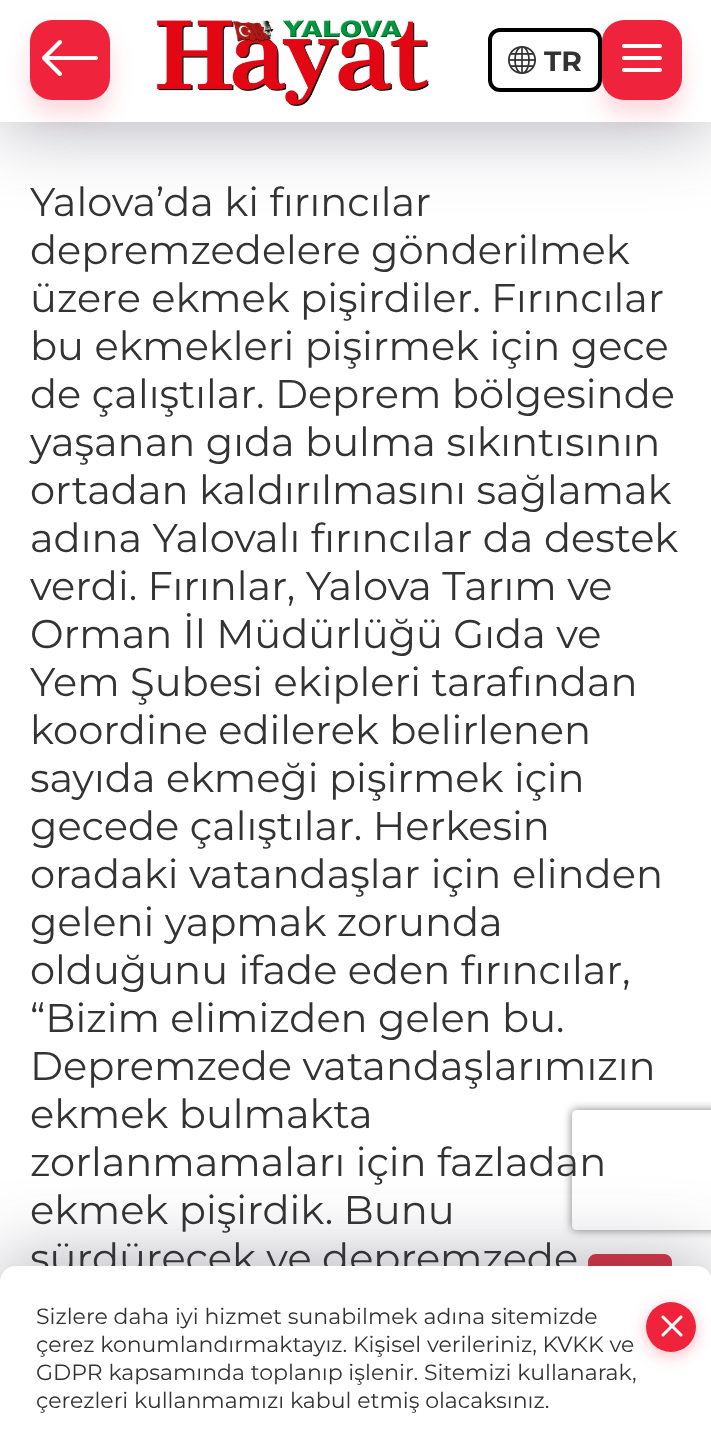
(async () => {
  const canvas = document.querySelector("canvas");
  canvas.width = 711;
  canvas.height = 1450;
  const ctx = canvas.getContext("2d");
  ctx.miterLimit = 4;
  ctx.fontKerning = "normal";
  async function loadImage(src) {
    const img = new Image();
    img.src = src;
    await img.decode();
    return img;
  }
  let path;

  ctx.fillStyle = "#ffffff";
  ctx.fillRect(0, 0, 711, 1450);
  ctx.fillStyle = "rgba(43, 45, 66, 0.36)";
  ctx.filter = "blur(38px)";
  ctx.beginPath();
  ctx.rect(0, 6, 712, 122);
  ctx.fill();
  ctx.filter = "none";
  ctx.fillStyle = "#ffffff";
  ctx.fillRect(0, 0, 711, 122);
  ctx.fillStyle = "rgba(239, 35, 60, 0.18)";
  ctx.filter = "blur(11px)";
  ctx.beginPath();
  ctx.roundRect(30, 34, 80, 80, 22);
  ctx.fill();
  ctx.filter = "none";
  ctx.fillStyle = "#ef233c";
  ctx.beginPath();
  ctx.roundRect(30, 20, 80, 80, 22);
  ctx.fill();
  ctx.drawImage(await loadImage("img/1.png"), 42, 40, 56, 36);
  ctx.drawImage(await loadImage("img/2.png"), 156, 18, 273, 88);
  ctx.fillStyle = "rgba(239, 35, 60, 0.18)";
  ctx.filter = "blur(11px)";
  ctx.beginPath();
  ctx.roundRect(602, 34, 80, 80, 22);
  ctx.fill();
  ctx.filter = "none";
  ctx.fillStyle = "#ffffff";
  ctx.beginPath();
  ctx.roundRect(490, 30, 110, 60, 10);
  ctx.fill();
  ctx.strokeStyle = "#000000";
  ctx.lineWidth = 4;
  ctx.stroke();
  ctx.drawImage(await loadImage("img/3.png"), 508, 46, 28, 28);
  ctx.fillStyle = "#ef233c";
  ctx.beginPath();
  ctx.roundRect(602, 20, 80, 80, 22);
  ctx.fill();
  ctx.fillStyle = "#ffffff";
  ctx.beginPath();
  ctx.roundRect(622, 56, 40, 4, 2);
  ctx.fill();
  ctx.beginPath();
  ctx.roundRect(622, 44, 40, 4, 2);
  ctx.fill();
  ctx.beginPath();
  ctx.roundRect(622, 68, 40, 4, 2);
  ctx.fill();
  ctx.save();
  path = new Path2D("M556 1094H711V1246H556ZM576 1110H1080C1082 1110 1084 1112 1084 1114V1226C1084 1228 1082 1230 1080 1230H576C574 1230 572 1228 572 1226V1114C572 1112 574 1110 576 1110Z");
  ctx.clip(path, "evenodd");
  ctx.fillStyle = "#808080";
  ctx.filter = "blur(5px)";
  ctx.beginPath();
  ctx.roundRect(572, 1110, 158, 120, 4);
  ctx.fill();
  ctx.filter = "none";
  ctx.restore();
  ctx.fillStyle = "#dc3545";
  ctx.beginPath();
  ctx.roundRect(589, 1255, 82, 74, 7);
  ctx.fill();
  ctx.strokeStyle = "#dc3545";
  ctx.lineWidth = 2;
  ctx.stroke();
  ctx.fillStyle = "rgba(43, 45, 66, 0.36)";
  ctx.filter = "blur(38px)";
  ctx.beginPath();
  ctx.roundRect(0, 1260, 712, 184, 16);
  ctx.fill();
  ctx.filter = "none";
  ctx.font = "bold 28px Montserrat";
  ctx.fillStyle = "#333333";
  ctx.fillText("TR", 544, 71);
  ctx.font = "40px Montserrat";
  for (const [text, x, y] of [
    ["Yalova’da ki fırıncılar", 30, 216],
    ["depremzedelere gönderilmek", 30, 264],
    ["üzere ekmek pişirdiler. Fırıncılar", 30, 312],
    ["bu ekmekleri pişirmek için gece", 30, 360],
    ["de çalıştılar. Deprem bölgesinde", 30, 408],
    ["yaşanan gıda bulma sıkıntısının", 30, 456],
    ["ortadan kaldırılmasını sağlamak", 30, 504],
    ["adına Yalovalı fırıncılar da destek", 30, 552],
    ["verdi. Fırınlar, Yalova Tarım ve", 30, 600],
    ["Orman İl Müdürlüğü Gıda ve", 30, 648],
    ["Yem Şubesi ekipleri tarafından", 30, 696],
    ["koordine edilerek belirlenen", 30, 744],
    ["sayıda ekmeği pişirmek için", 30, 792],
    ["gecede çalıştılar. Herkesin", 30, 840],
    ["oradaki vatandaşlar için elinden", 30, 888],
    ["geleni yapmak zorunda", 30, 936],
    ["olduğunu ifade eden fırıncılar,", 30, 984],
    ["“Bizim elimizden gelen bu.", 30, 1032],
    ["Depremzede vatandaşlarımızın", 30, 1080],
    ["ekmek bulmakta", 30, 1128],
    ["zorlanmamaları için fazladan", 30, 1176],
    ["ekmek pişirdik. Bunu", 30, 1224],
    ["sürdürecek ve depremzede", 30, 1272],
  ]) {
    ctx.fillText(text, x, y);
  }
  ctx.fillStyle = "#ffffff";
  path = new Path2D("M16 1266H696C705 1266 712 1273 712 1282V1450H0V1282C0 1273 7 1266 16 1266Z");
  ctx.fill(path);
  ctx.font = "22px Montserrat";
  ctx.fillStyle = "#333333";
  ctx.fillText("Sizlere daha iyi hizmet sunabilmek adına sitemizde", 36, 1324);
  ctx.fillStyle = "rgba(255, 86, 106, 0.38)";
  ctx.filter = "blur(8px)";
  ctx.beginPath();
  ctx.roundRect(646, 1306, 50, 50, 25);
  ctx.fill();
  ctx.filter = "none";
  ctx.fillStyle = "#ef233c";
  ctx.beginPath();
  ctx.arc(671, 1327, 25, 0, Math.PI * 2);
  ctx.fill();
  ctx.drawImage(await loadImage("img/4.png"), 661, 1315, 22, 22);
  ctx.fillStyle = "#333333";
  for (const [text, x, y] of [
    ["çerez konumlandırmaktayız. Kişisel verileriniz, KVKK ve", 36, 1352],
    ["GDPR kapsamında toplanıp işlenir. Sitemizi kullanarak,", 36, 1380],
    ["çerezleri kullanmamızı kabul etmiş olacaksınız.", 36, 1408],
  ]) {
    ctx.fillText(text, x, y);
  }
})();
